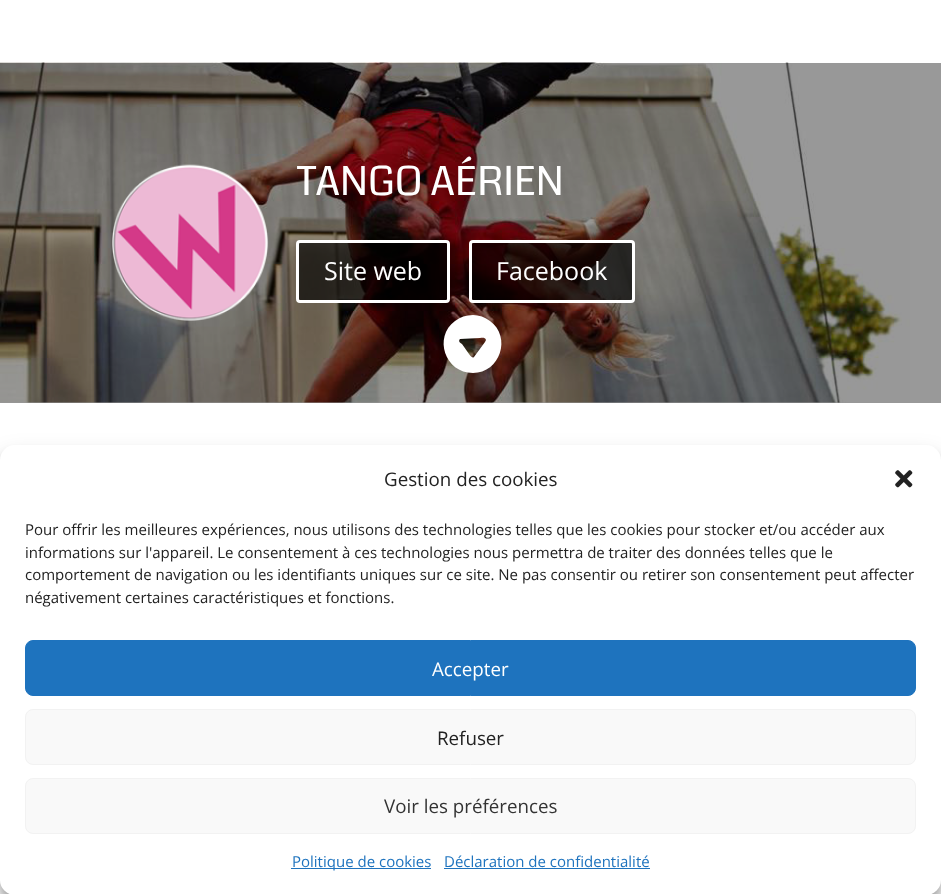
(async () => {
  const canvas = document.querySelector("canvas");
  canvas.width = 941;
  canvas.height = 894;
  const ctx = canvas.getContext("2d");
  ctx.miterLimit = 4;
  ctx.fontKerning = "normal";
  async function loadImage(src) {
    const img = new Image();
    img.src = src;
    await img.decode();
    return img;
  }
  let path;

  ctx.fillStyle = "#ffffff";
  ctx.fillRect(0, 0, 941, 894);
  ctx.fillStyle = "#999999";
  ctx.fillRect(0, 63, 941, 340);
  ctx.drawImage(await loadImage("img/1.png"), 0, 62, 910, 341);
  ctx.drawImage(await loadImage("img/2.png"), 112, 164, 157, 157);
  ctx.fillStyle = "rgba(0, 0, 0, 0.64)";
  ctx.beginPath();
  ctx.roundRect(297.5, 241.5, 151, 60, 2.5);
  ctx.fill();
  ctx.strokeStyle = "#ffffff";
  ctx.lineWidth = 3;
  ctx.stroke();
  ctx.fillStyle = "rgba(0, 0, 0, 0.67)";
  ctx.beginPath();
  ctx.roundRect(470.5, 241.5, 163, 60, 2.5);
  ctx.fill();
  ctx.stroke();
  ctx.fillStyle = "#ffffff";
  path = new Path2D("M473 315C466 315 460 317 455 321C433 337 445 373 473 373C500 373 512 337 490 321C485 317 479 315 473 315ZM485 342L474 357C472 359 470 355 469 354L462 344C460 343 458 341 460 339L480 338C482 338 485 337 486 340Z");
  ctx.fill(path);
  ctx.fillStyle = "rgba(0, 0, 0, 0.23)";
  ctx.filter = "blur(4px)";
  ctx.beginPath();
  ctx.roundRect(0, 453, 941, 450, 15);
  ctx.fill();
  ctx.filter = "none";
  ctx.fillStyle = "rgba(0, 0, 0, 0.19)";
  ctx.filter = "blur(12.5px)";
  ctx.beginPath();
  ctx.roundRect(0, 458, 941, 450, 15);
  ctx.fill();
  ctx.filter = "none";
  ctx.fillStyle = "#ffffff";
  ctx.beginPath();
  ctx.roundRect(0, 445, 941, 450, 15);
  ctx.fill();
  ctx.drawImage(await loadImage("img/3.png"), 895, 470, 18, 18);
  ctx.fillStyle = "#1e73be";
  ctx.beginPath();
  ctx.roundRect(25.5, 640.5, 890, 55, 7.5);
  ctx.fill();
  ctx.strokeStyle = "#1e73be";
  ctx.lineWidth = 1;
  ctx.stroke();
  ctx.fillStyle = "#f9f9f9";
  ctx.beginPath();
  ctx.roundRect(25.5, 709.5, 890, 55, 7.5);
  ctx.fill();
  ctx.strokeStyle = "#f2f2f2";
  ctx.stroke();
  ctx.beginPath();
  ctx.roundRect(25.5, 778.5, 890, 55, 7.5);
  ctx.fill();
  ctx.stroke();
  ctx.fillStyle = "#1e73be";
  ctx.fillRect(291, 868, 140, 1);
  ctx.fillRect(444, 868, 206, 1);
  ctx.font = "40px Coda";
  ctx.fillStyle = "#ffffff";
  ctx.fillText("TANGO AÉRIEN", 297, 195);
  ctx.font = "25px Open Sans";
  ctx.fillText("Site web", 324, 280);
  ctx.fillText("Facebook", 496, 280);
  ctx.font = "18.75px Open Sans";
  ctx.fillStyle = "#222222";
  ctx.fillText("Gestion des cookies", 384, 486);
  ctx.font = "15px Open Sans";
  for (const [text, x, y] of [
    ["Pour offrir les meilleures expériences, nous utilisons des technologies telles que les cookies pour stocker et/ou accéder aux", 25, 535],
    ["informations sur l'appareil. Le consentement à ces technologies nous permettra de traiter des données telles que le", 25, 558],
    ["comportement de navigation ou les identifiants uniques sur ce site. Ne pas consentir ou retirer son consentement peut affecter", 25, 580],
    ["négativement certaines caractéristiques et fonctions.", 25, 603],
  ]) {
    ctx.fillText(text, x, y);
  }
  ctx.font = "18.75px Open Sans";
  ctx.fillStyle = "#ffffff";
  ctx.fillText("Accepter", 432, 676);
  ctx.fillStyle = "#222222";
  ctx.fillText("Refuser", 437, 745);
  ctx.fillStyle = "#333333";
  ctx.fillText("Voir les préférences", 384, 813);
  ctx.font = "15px Open Sans";
  ctx.fillStyle = "#1e73be";
  ctx.fillText("Politique de cookies", 292, 867);
  ctx.fillText("Déclaration de confidentialité", 444, 867);
})();
